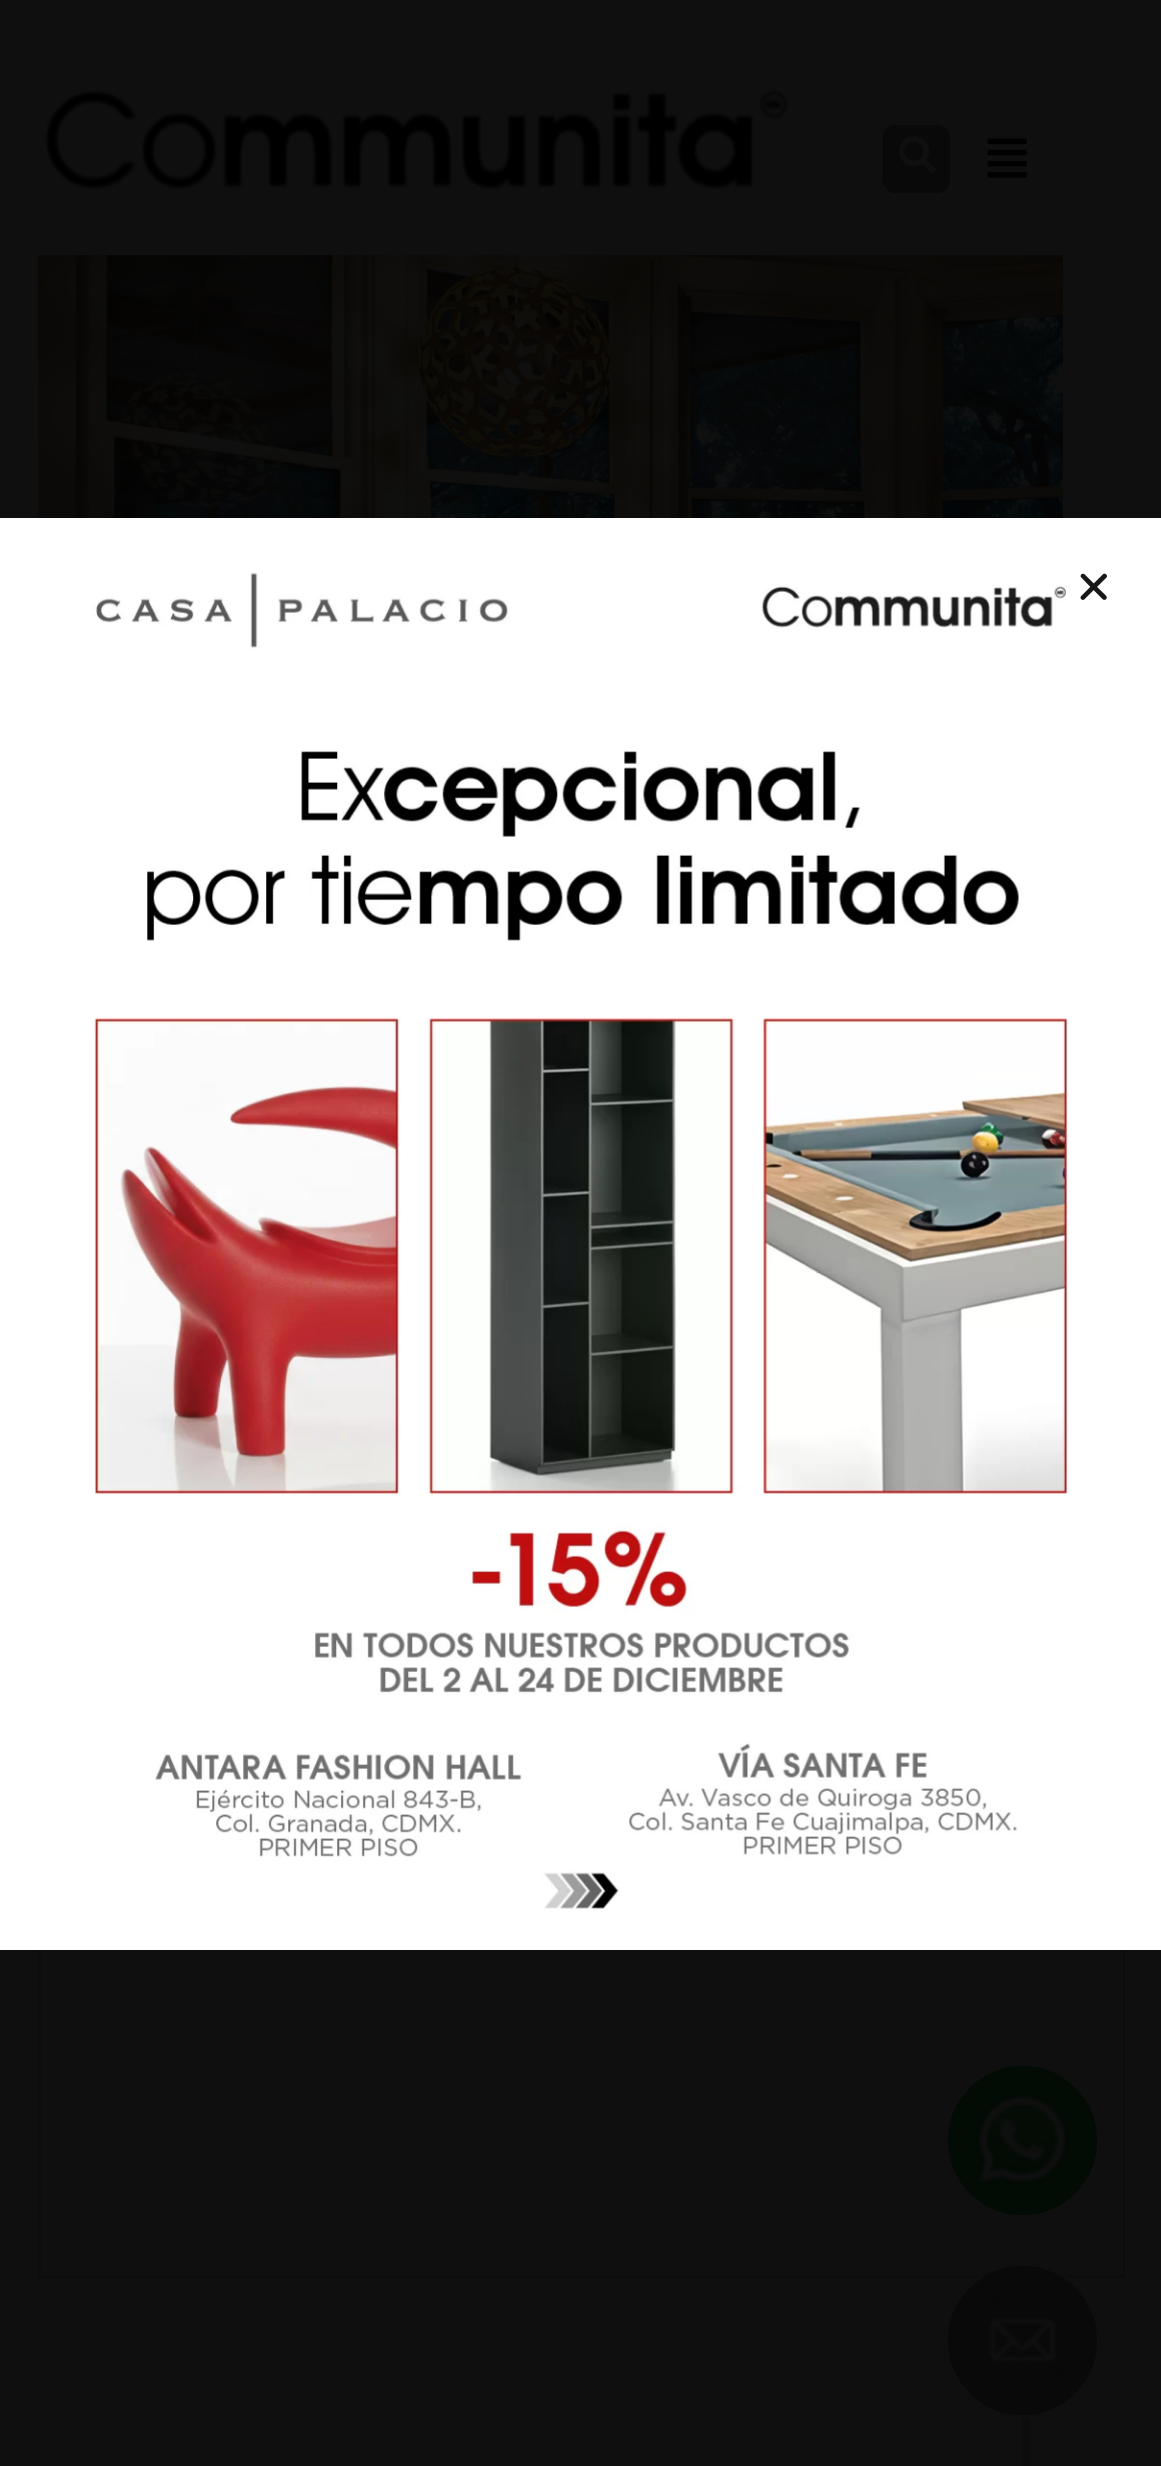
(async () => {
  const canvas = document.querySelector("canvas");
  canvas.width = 1161;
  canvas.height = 2466;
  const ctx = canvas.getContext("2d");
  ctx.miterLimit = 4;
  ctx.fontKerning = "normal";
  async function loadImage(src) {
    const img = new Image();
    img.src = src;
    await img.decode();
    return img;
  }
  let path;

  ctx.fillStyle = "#0f0f0f";
  ctx.fillRect(0, 0, 1161, 2466);
  ctx.drawImage(await loadImage("img/1.png"), 43, 87, 746, 104);
  ctx.fillStyle = "#090909";
  ctx.beginPath();
  ctx.roundRect(883, 125, 67, 68, 13);
  ctx.fill();
  ctx.drawImage(await loadImage("img/2.png"), 898, 136, 39, 38);
  ctx.drawImage(await loadImage("img/3.png"), 987, 138, 40, 40);
  ctx.fillStyle = "#020b04";
  ctx.beginPath();
  ctx.arc(1022.5, 2140.5, 76, 0, Math.PI * 2);
  ctx.fill();
  ctx.strokeStyle = "#0f0f0f";
  ctx.lineWidth = 3;
  ctx.stroke();
  ctx.drawImage(await loadImage("img/4.png"), 977, 2094, 92, 92);
  ctx.fillStyle = "#0c0c0c";
  ctx.fillRect(1123, 1950, 2, 328);
  ctx.fillRect(38, 2275, 1087, 3);
  path = new Path2D("M148 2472V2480H1030V2348H1022V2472Z");
  ctx.fill(path);
  ctx.fillStyle = "#090909";
  ctx.beginPath();
  ctx.arc(1022.5, 2340.5, 76, 0, Math.PI * 2);
  ctx.fill();
  ctx.stroke();
  ctx.drawImage(await loadImage("img/5.png"), 976, 2293, 93, 94);
  ctx.drawImage(await loadImage("img/6.png"), 38, 255, 1025, 263);
  ctx.fillStyle = "#0c0c0c";
  ctx.fillRect(38, 1950, 3, 328);
  ctx.fillStyle = "#ffffff";
  ctx.fillRect(0, 518, 1161, 1432);
  ctx.drawImage(await loadImage("img/7.png"), 93, 572, 977, 1338);
  ctx.drawImage(await loadImage("img/8.png"), 1080, 573, 28, 27);
})();
